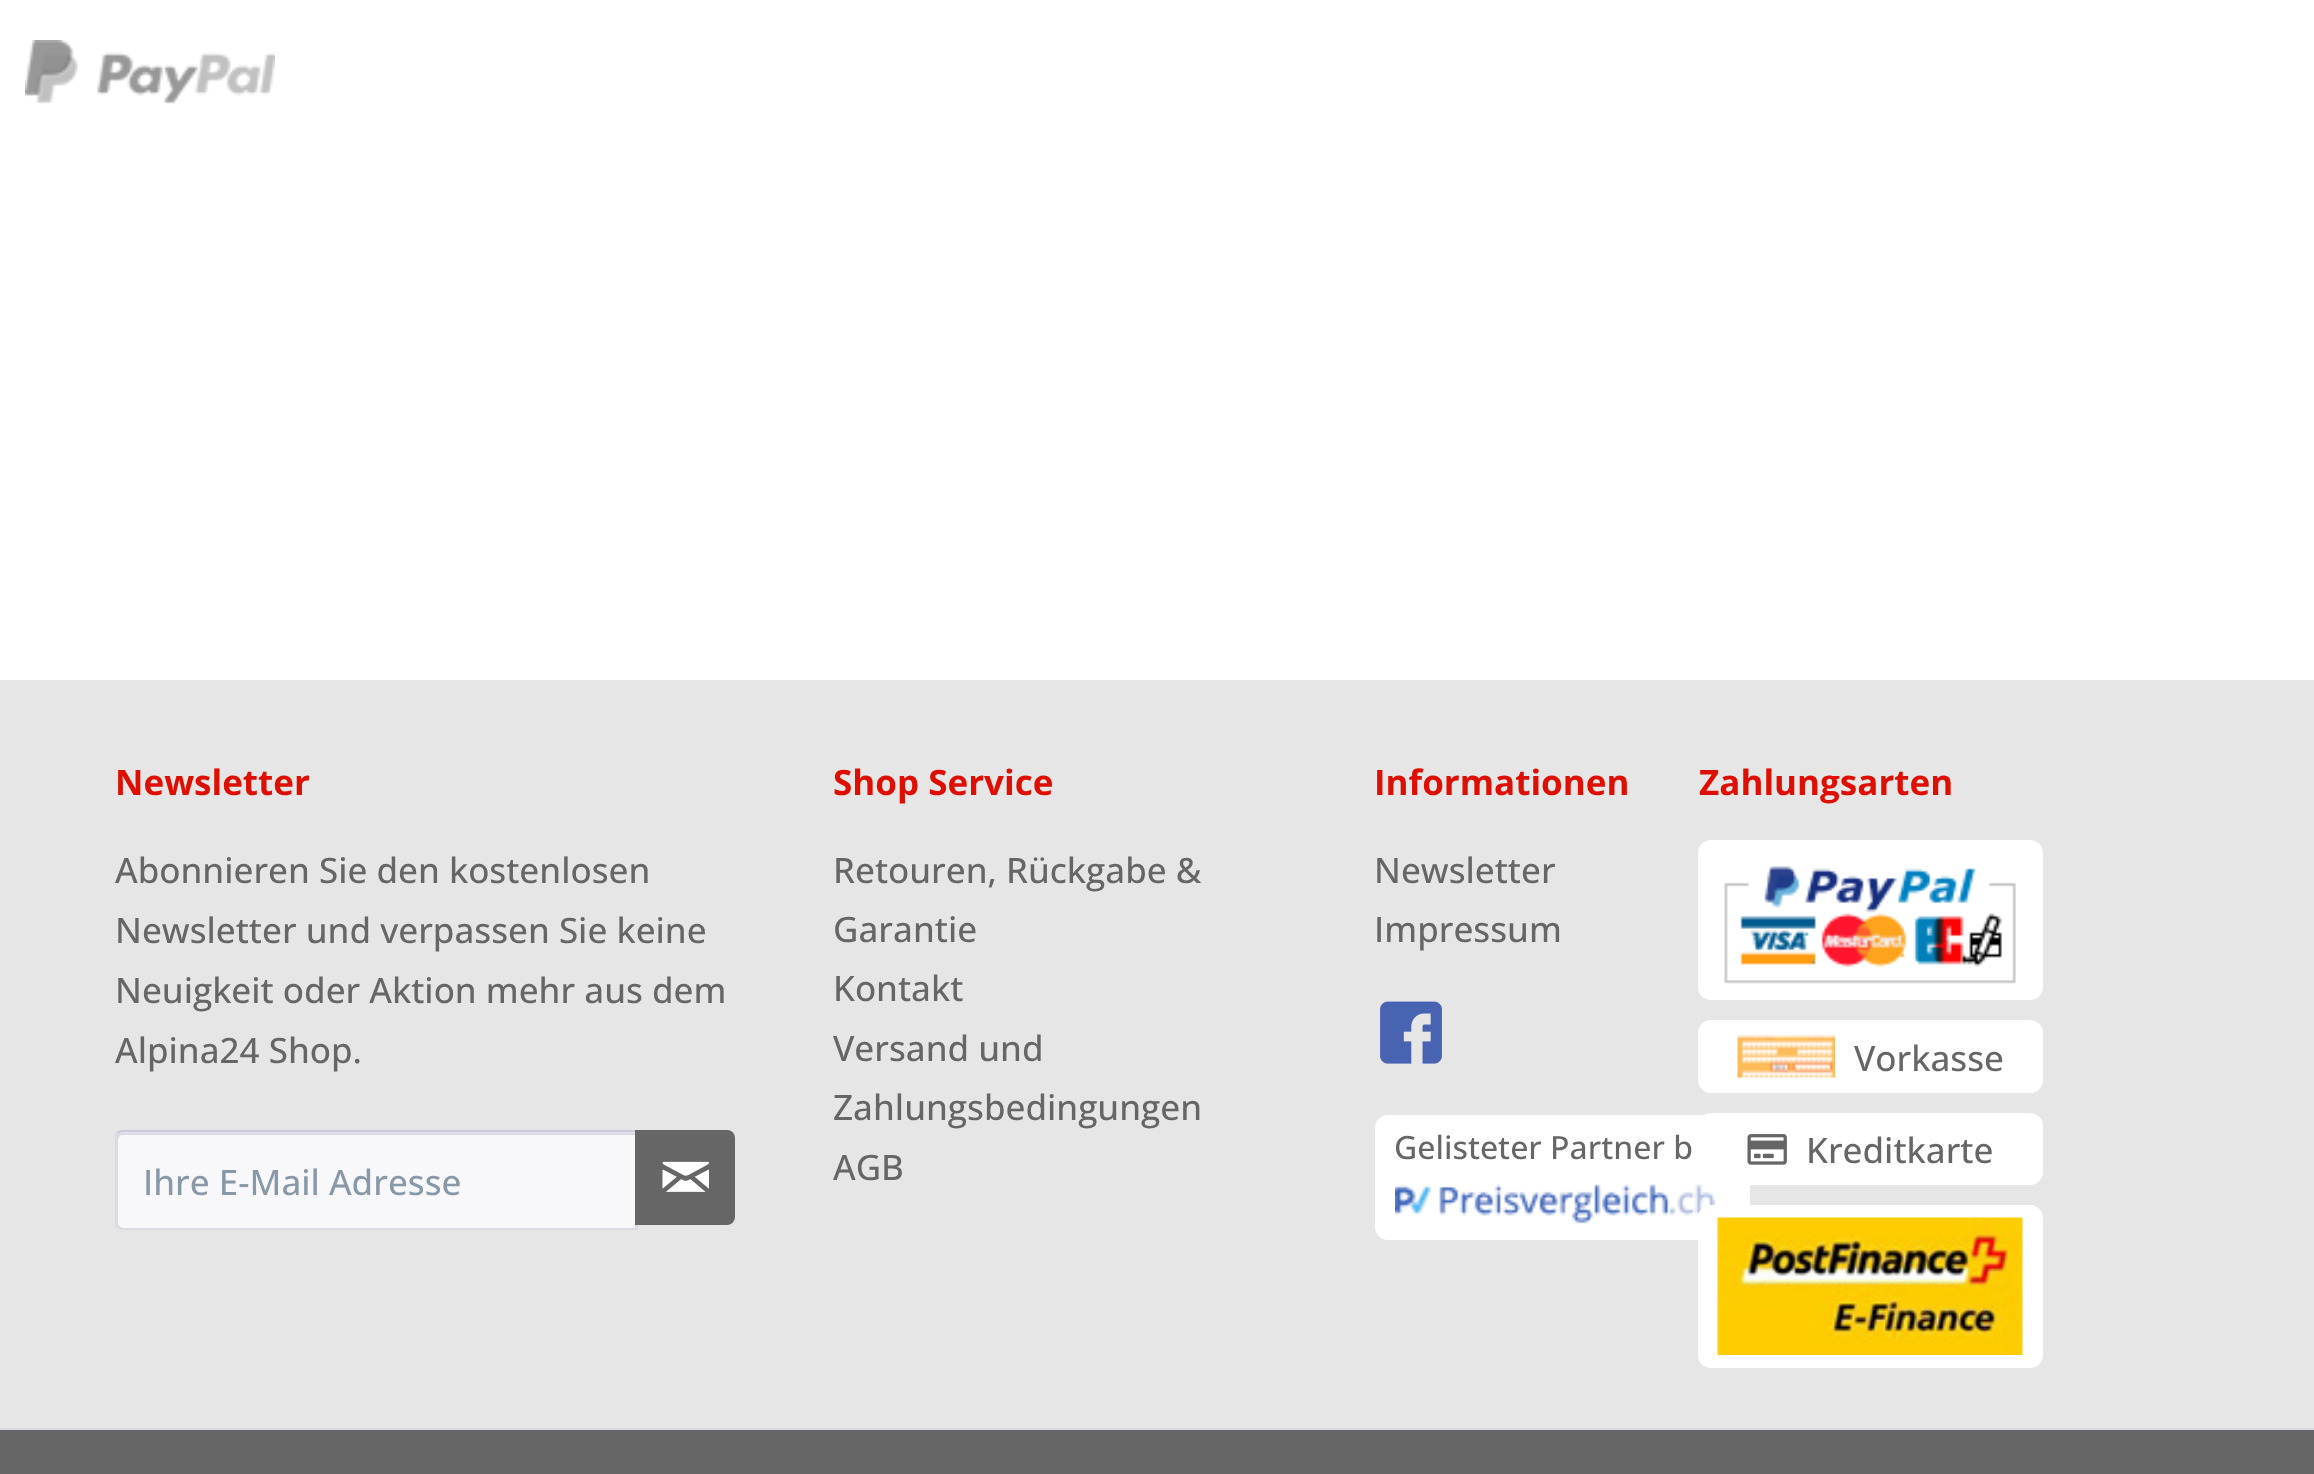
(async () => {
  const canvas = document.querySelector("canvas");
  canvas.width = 2314;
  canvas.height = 1474;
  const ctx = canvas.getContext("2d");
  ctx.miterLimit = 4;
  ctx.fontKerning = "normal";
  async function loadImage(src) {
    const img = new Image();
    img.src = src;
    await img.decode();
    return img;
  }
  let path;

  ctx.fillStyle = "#ffffff";
  ctx.fillRect(0, 0, 2314, 1474);
  ctx.drawImage(await loadImage("img/1.png"), 25, 40, 250, 64);
  ctx.fillStyle = "#e6e6e6";
  ctx.fillRect(0, 680, 2314, 748);
  ctx.fillStyle = "#dadae5";
  ctx.fillRect(0, 1428, 2314, 2);
  ctx.fillStyle = "#f8f8fa";
  ctx.beginPath();
  ctx.roundRect(118, 1133, 517, 95, [5, 0, 0, 5]);
  ctx.fill();
  ctx.fillStyle = "#dadae5";
  path = new Path2D("M122 1135H635V1133H123C120 1133 118 1135 118 1138V1140C118 1137 120 1135 122 1135Z");
  ctx.fill(path);
  ctx.fillStyle = "#cbcbdb";
  path = new Path2D("M122 1130C120 1130 118 1131 117 1132L119 1134C120 1133 121 1132 122 1132H635L638 1130Z");
  ctx.fill(path);
  ctx.fillStyle = "#dadae5";
  path = new Path2D("M638 1130V1230L635 1228V1132Z");
  ctx.fill(path);
  path = new Path2D("M638 1230L635 1228H122C121 1228 120 1227 119 1226L117 1228C118 1229 120 1230 122 1230Z");
  ctx.fill(path);
  path = new Path2D("M115 1138V1222C115 1225 116 1227 117 1228L119 1226C118 1225 118 1223 118 1222V1138C118 1137 118 1135 119 1134L117 1132C116 1133 115 1135 115 1138Z");
  ctx.fill(path);
  ctx.fillStyle = "#666666";
  ctx.beginPath();
  ctx.roundRect(635, 1130, 100, 95, [0, 8, 8, 0]);
  ctx.fill();
  ctx.drawImage(await loadImage("img/2.png"), 662, 1161, 47, 31);
  ctx.drawImage(await loadImage("img/3.png"), 1380, 1001, 62, 63);
  ctx.fillStyle = "#ffffff";
  ctx.beginPath();
  ctx.roundRect(1375, 1115, 375, 125, 13);
  ctx.fill();
  ctx.drawImage(await loadImage("img/4.png"), 1395, 1184, 320, 40);
  ctx.beginPath();
  ctx.roundRect(1698, 840, 345, 160, 13);
  ctx.fill();
  ctx.drawImage(await loadImage("img/5.png"), 1724, 866, 292, 118);
  ctx.beginPath();
  ctx.roundRect(1698, 1020, 345, 73, 13);
  ctx.fill();
  ctx.drawImage(await loadImage("img/6.png"), 1737, 1035, 98, 43);
  ctx.beginPath();
  ctx.roundRect(1698, 1113, 345, 72, 13);
  ctx.fill();
  ctx.drawImage(await loadImage("img/7.png"), 1747, 1134, 40, 31);
  ctx.beginPath();
  ctx.roundRect(1698, 1205, 345, 163, 13);
  ctx.fill();
  ctx.drawImage(await loadImage("img/8.png"), 1717, 1217, 306, 138);
  ctx.fillStyle = "#666666";
  ctx.fillRect(0, 1430, 2314, 44);
  ctx.font = "bold 35px Open Sans";
  ctx.fillStyle = "#de0e00";
  ctx.fillText("Newsletter", 115, 795);
  ctx.font = "500 35px Open Sans";
  ctx.fillStyle = "#666666";
  for (const [text, x, y] of [
    ["Abonnieren Sie den kostenlosen", 115, 883],
    ["Newsletter und verpassen Sie keine", 115, 943],
    ["Neuigkeit oder Aktion mehr aus dem", 115, 1003],
    ["Alpina24 Shop.", 115, 1063],
  ]) {
    ctx.fillText(text, x, y);
  }
  ctx.fillStyle = "#8798a9";
  ctx.fillText("Ihre E-Mail Adresse", 143, 1195);
  ctx.font = "bold 35px Open Sans";
  ctx.fillStyle = "#de0e00";
  ctx.fillText("Shop Service", 833, 795);
  ctx.font = "500 35px Open Sans";
  ctx.fillStyle = "#666666";
  for (const [text, x, y] of [
    ["Retouren, Rückgabe &", 833, 883],
    ["Garantie", 833, 942],
    ["Kontakt", 833, 1001],
    ["Versand und", 833, 1061],
    ["Zahlungsbedingungen", 833, 1120],
    ["AGB", 833, 1180],
  ]) {
    ctx.fillText(text, x, y);
  }
  ctx.font = "bold 35px Open Sans";
  ctx.fillStyle = "#de0e00";
  ctx.fillText("Informationen", 1374, 795);
  ctx.font = "500 35px Open Sans";
  ctx.fillStyle = "#666666";
  ctx.fillText("Newsletter", 1374, 883);
  ctx.fillText("Impressum", 1374, 942);
  ctx.font = "500 32px Open Sans";
  ctx.fillText("Gelisteter Partner b", 1394, 1159);
  ctx.font = "bold 35px Open Sans";
  ctx.fillStyle = "#de0e00";
  ctx.fillText("Zahlungsarten", 1699, 795);
  ctx.font = "500 35px Open Sans";
  ctx.fillStyle = "#666666";
  ctx.fillText("Vorkasse", 1854, 1071);
  ctx.fillText("Kreditkarte", 1806, 1163);
})();
